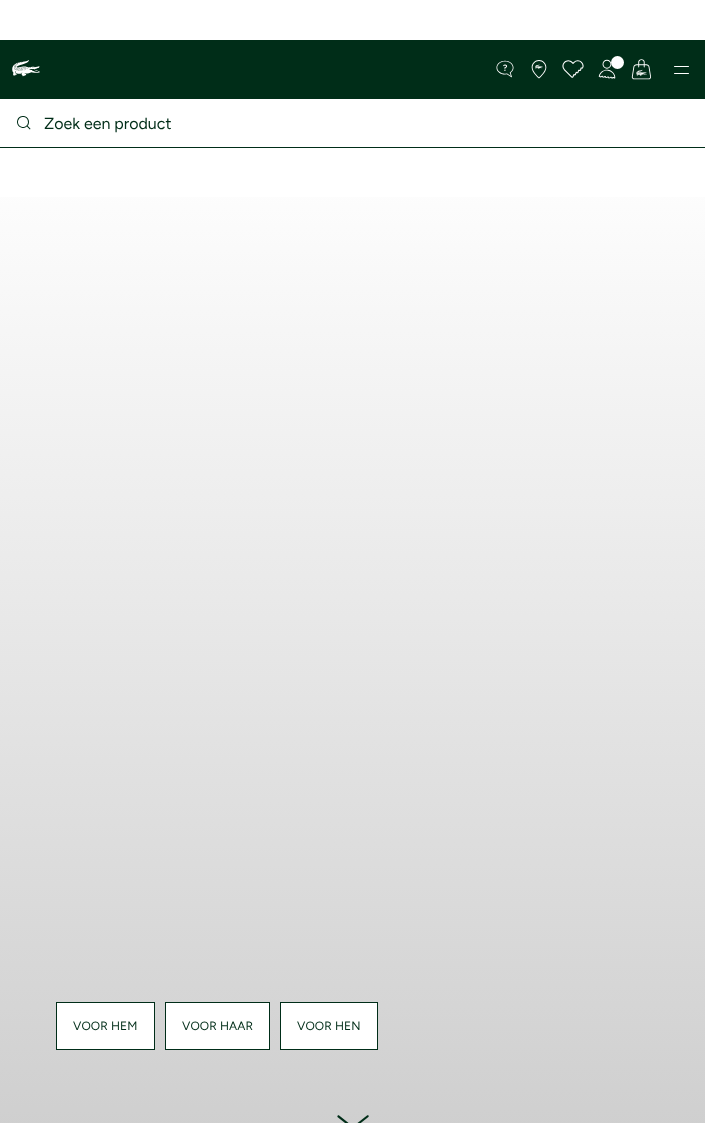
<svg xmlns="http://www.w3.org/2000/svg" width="705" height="1123">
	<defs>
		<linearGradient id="g1" gradientUnits="userSpaceOnUse" x1="352" y1="146" x2="353" y2="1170"><stop offset="0" stop-color="#FFFFFF" /><stop offset="1" stop-color="#CDCDCD" /></linearGradient>
	</defs>
	<rect width="100%" height="100%" fill="#FFFFFF" />
	<rect x="0" y="40" width="705" height="59" fill="#002D18" />
	<image x="12" y="60" width="28" height="17" href="assets/img1.png" />
	<image x="496" y="60" width="18" height="18" href="assets/img2.png" />
	<image x="531" y="60" width="16" height="19" href="assets/img3.png" />
	<image x="562" y="60" width="22" height="18" href="assets/img4.png" />
	<image x="598" y="59" width="18" height="20" href="assets/img5.png" />
	<circle cx="617.5" cy="62.5" r="6.5" fill="#FFFFFF" />
	<image x="631" y="59" width="20" height="21" href="assets/img6.png" />
	<rect x="674" y="66" width="15" height="1" rx="0.5" fill="#FFFFFF" />
	<rect x="674" y="73" width="15" height="1" rx="0.5" fill="#FFFFFF" />
	<rect x="0" y="147" width="705" height="1" fill="#002D18" />
	<image x="17" y="116" width="14" height="14" href="assets/img7.png" />
	<text x="44" y="129" font-family="Figtree" font-size="16" fill="#002D18">Zoek een product</text>
	<rect x="0" y="197" width="705" height="926" fill="url(#g1)" />
	<rect x="56.5" y="1002.5" width="98" height="47" fill="#FFFFFF" stroke="#002D18" />
	<text x="73" y="1030" font-family="Figtree" font-size="12" letter-spacing="0.1" fill="#002D18">VOOR HEM</text>
	<rect x="165.5" y="1002.5" width="104" height="47" fill="#FFFFFF" stroke="#002D18" />
	<text x="182" y="1030" font-family="Figtree" font-size="12" letter-spacing="0.1" fill="#002D18">VOOR HAAR</text>
	<rect x="280.5" y="1002.5" width="97" height="47" fill="#FFFFFF" stroke="#002D18" />
	<text x="297" y="1030" font-family="Figtree" font-size="12" letter-spacing="0.1" fill="#002D18">VOOR HEN</text>
	<image x="337" y="1115" width="32" height="8" href="assets/img8.png" />
</svg>
